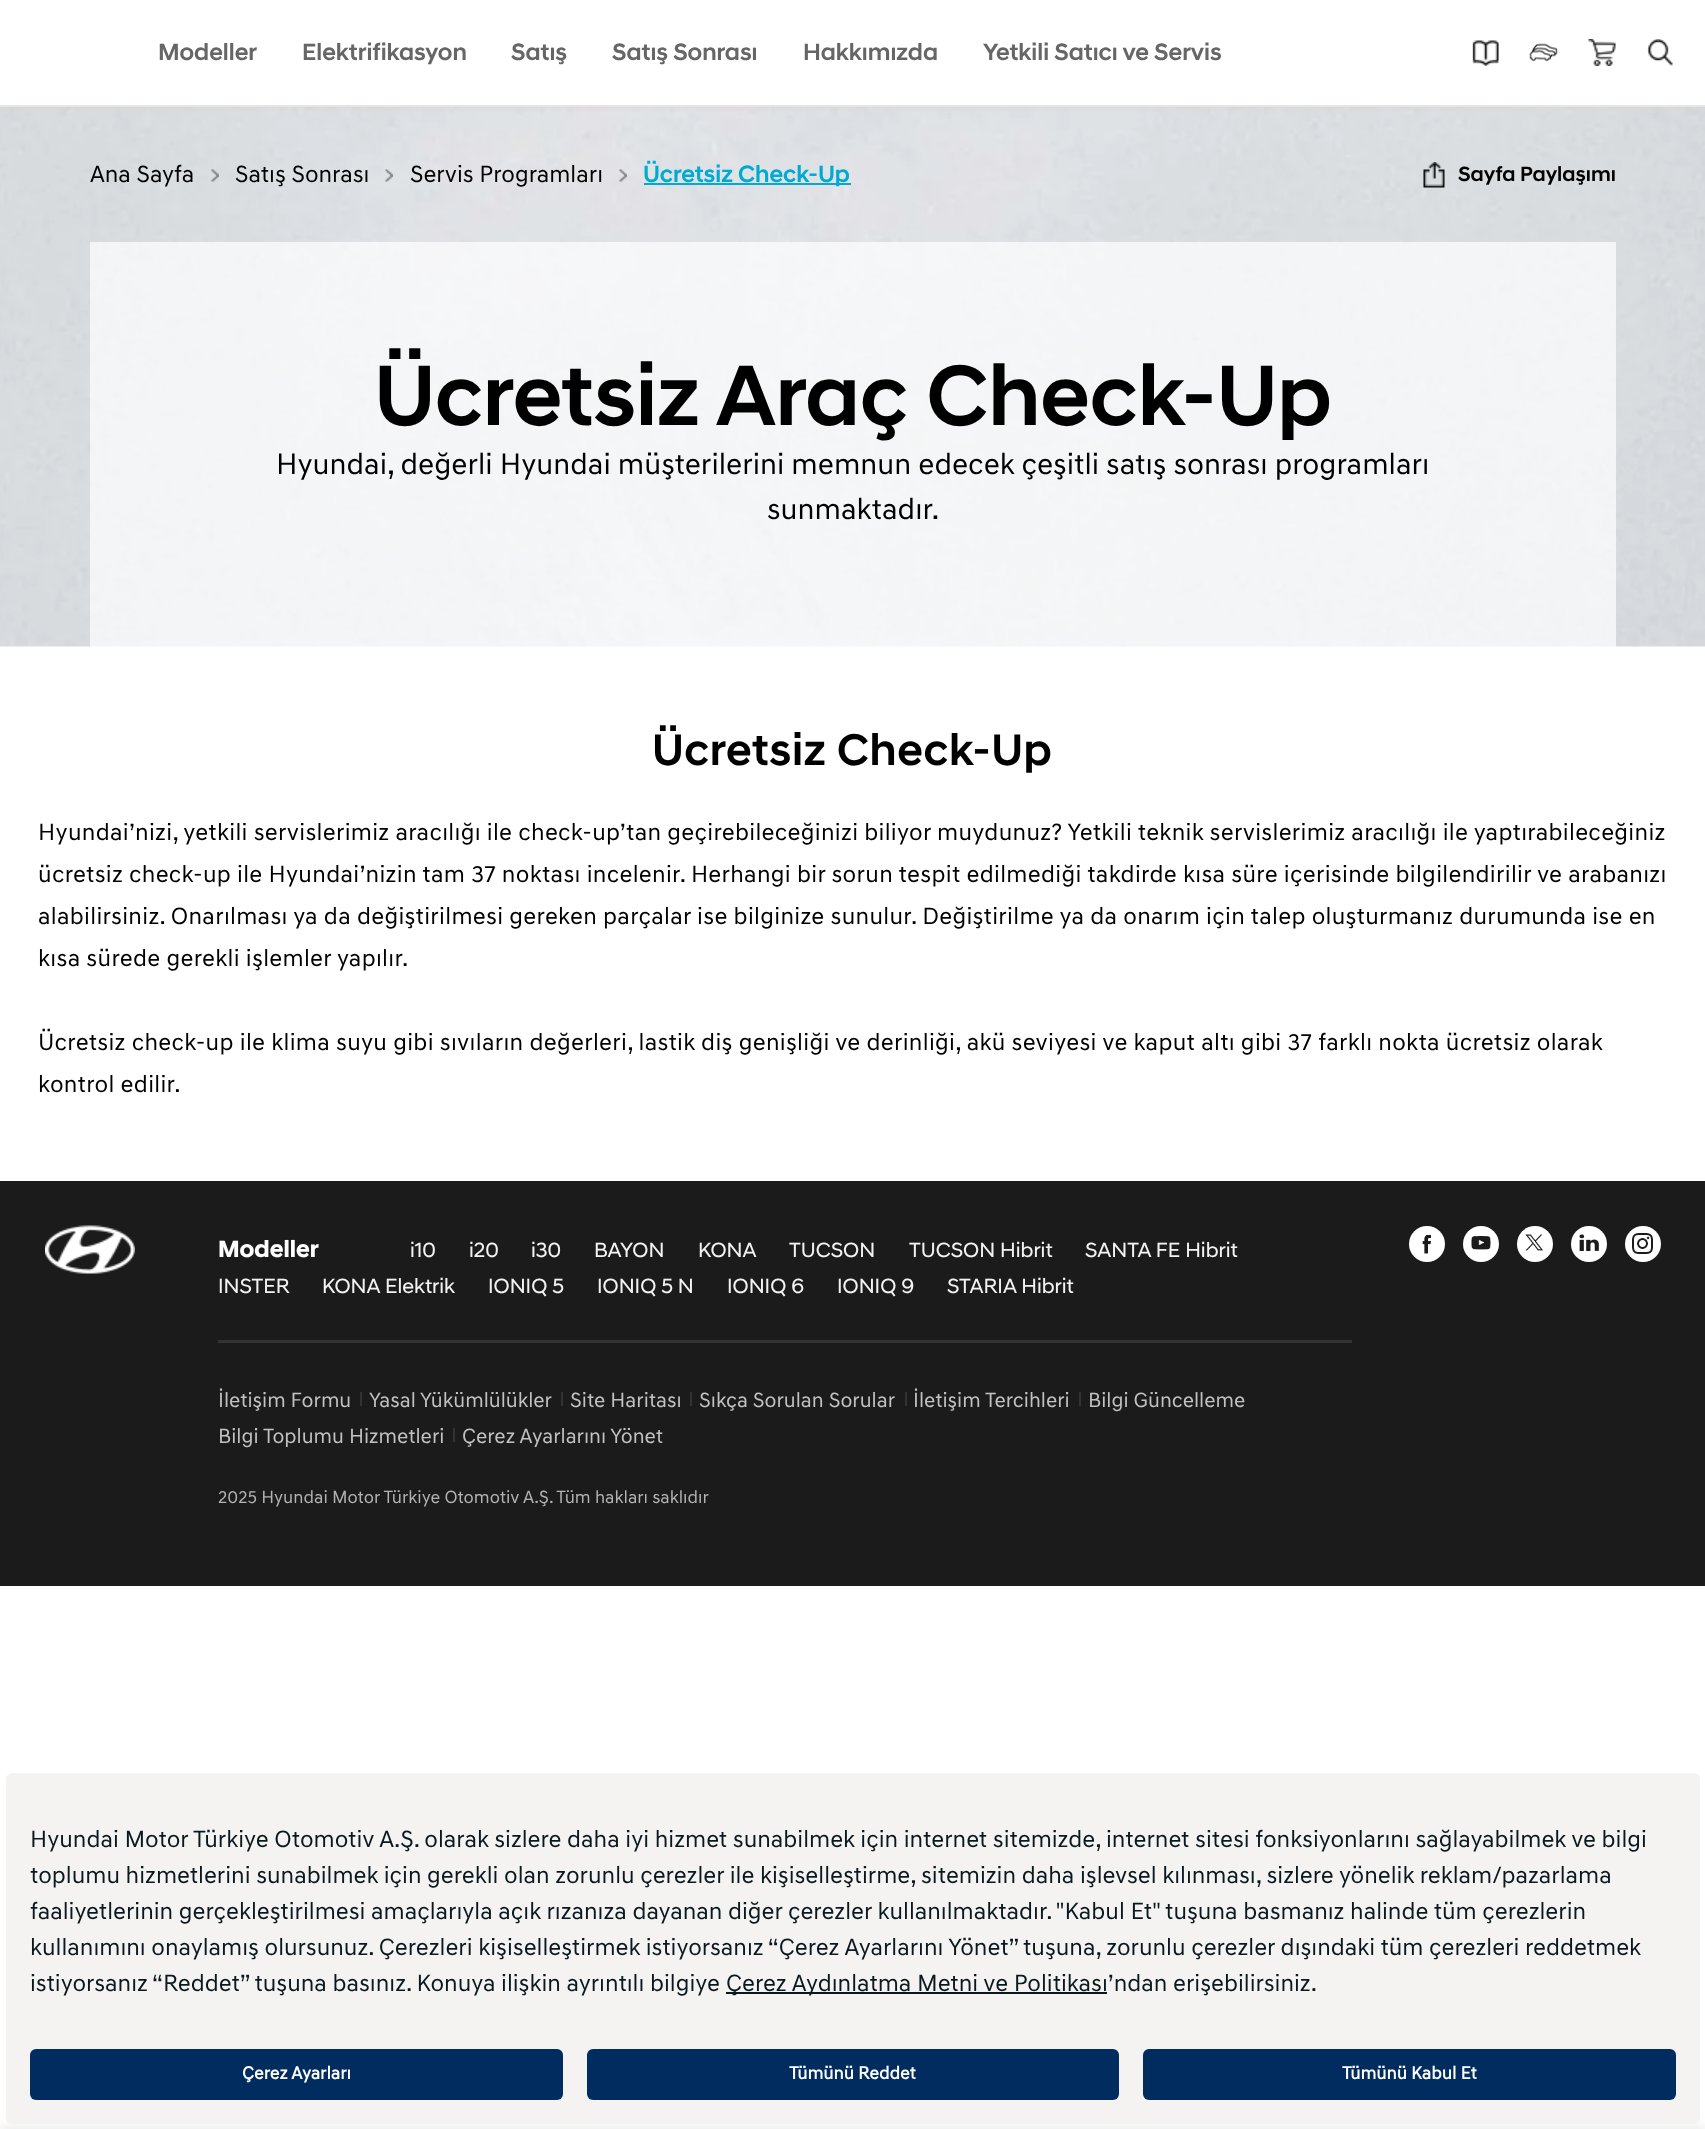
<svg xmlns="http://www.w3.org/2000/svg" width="1705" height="2129">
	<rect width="100%" height="100%" fill="#FFFFFF" />
	<image x="0" y="107" width="1705" height="540" href="assets/img5.png" />
	<rect x="0" y="2" width="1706" height="106" fill="#D8D1C8" fill-opacity="0.7" filter="blur(2px)" />
	<rect x="0" y="0" width="1705" height="105" fill="#FFFFFF" />
	<g font-family="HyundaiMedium" font-size="24" font-weight="500" fill="#666666">
		<text x="158" y="60">Modeller</text>
		<text x="302" y="60">Elektrifikasyon</text>
		<text x="511" y="60">Satış</text>
		<text x="612" y="60">Satış Sonrası</text>
		<text x="803" y="60">Hakkımızda</text>
		<text x="983" y="60">Yetkili Satıcı ve Servis</text>
	</g>
	<image x="1472" y="40" width="27" height="26" href="assets/img1.png" />
	<image x="1529" y="43" width="29" height="19" href="assets/img2.png" />
	<image x="1588" y="39" width="28" height="27" href="assets/img3.png" />
	<image x="1647" y="39" width="26" height="27" href="assets/img4.png" />
	<rect x="0" y="105" width="1705" height="2" fill="#E5E5E5" />
	<text x="90" y="182" font-family="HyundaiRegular" font-size="24" fill="#000000">Ana Sayfa</text>
	<image x="211" y="169" width="8" height="13" href="assets/img6.png" />
	<text x="235" y="182" font-family="HyundaiRegular" font-size="24" fill="#000000">Satış Sonrası</text>
	<image x="385" y="169" width="8" height="13" href="assets/img7.png" />
	<text x="410" y="182" font-family="HyundaiRegular" font-size="24" fill="#000000">Servis Programları</text>
	<image x="619" y="169" width="8" height="13" href="assets/img8.png" />
	<rect x="644" y="183" width="207" height="2" fill="#00AAD2" />
	<text x="643" y="182" font-family="HyundaiMedium" font-size="24" font-weight="500" fill="#00AAD2">Ücretsiz Check-Up</text>
	<image x="1423" y="162" width="22" height="26" href="assets/img9.png" />
	<text x="1458" y="181" font-family="HyundaiMedium" font-size="21" font-weight="500" fill="#000000">Sayfa Paylaşımı</text>
	<rect x="90" y="242" width="1526" height="405" fill="#FFFFFF" fill-opacity="0.7" />
	<text x="374" y="425" font-family="HyundaiMedium" font-size="87" font-weight="500" fill="#000000">Ücretsiz Araç Check-Up</text>
	<g font-family="HyundaiRegular" font-size="30" fill="#000000">
		<text x="276" y="474">Hyundai, değerli Hyundai müşterilerini memnun edecek çeşitli satış sonrası programları</text>
		<text x="767" y="519">sunmaktadır.</text>
	</g>
	<text x="652" y="765" font-family="HyundaiMedium" font-size="45" font-weight="500" letter-spacing="0.75" fill="#000000">Ücretsiz Check-Up</text>
	<g font-family="HyundaiRegular" font-size="24" letter-spacing="0.3" fill="#000000">
		<text x="38" y="840">Hyundai’nizi, yetkili servislerimiz aracılığı ile check-up’tan geçirebileceğinizi biliyor muydunuz? Yetkili teknik servislerimiz aracılığı ile yaptırabileceğiniz</text>
		<text x="38" y="882">ücretsiz check-up ile Hyundai’nizin tam 37 noktası incelenir. Herhangi bir sorun tespit edilmediği takdirde kısa süre içerisinde bilgilendirilir ve arabanızı</text>
		<text x="38" y="924">alabilirsiniz. Onarılması ya da değiştirilmesi gereken parçalar ise bilginize sunulur. Değiştirilme ya da onarım için talep oluşturmanız durumunda ise en</text>
		<text x="38" y="966">kısa sürede gerekli işlemler yapılır.</text>
		<text x="38" y="1050">Ücretsiz check-up ile klima suyu gibi sıvıların değerleri, lastik diş genişliği ve derinliği, akü seviyesi ve kaput altı gibi 37 farklı nokta ücretsiz olarak</text>
		<text x="38" y="1092">kontrol edilir.</text>
	</g>
	<rect x="0" y="1181" width="1705" height="405" fill="#1C1B1B" />
	<image x="45" y="1225" width="90" height="49" href="assets/img10.png" />
	<rect x="218" y="1340" width="1134" height="3" fill="#323232" />
	<text x="218" y="1257" font-family="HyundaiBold" font-size="24" font-weight="700" fill="#FFFFFF">Modeller</text>
	<g font-family="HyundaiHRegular" font-size="21" fill="#F2F2F2">
		<text x="410" y="1257">i10</text>
		<text x="469" y="1257">i20</text>
		<text x="531" y="1257">i30</text>
		<text x="594" y="1257">BAYON</text>
		<text x="698" y="1257">KONA</text>
		<text x="789" y="1257">TUCSON</text>
		<text x="909" y="1257">TUCSON Hibrit</text>
		<text x="1085" y="1257">SANTA FE Hibrit</text>
		<text x="218" y="1293">INSTER</text>
		<text x="322" y="1293">KONA Elektrik</text>
		<text x="488" y="1293">IONIQ 5</text>
		<text x="597" y="1293">IONIQ 5 N</text>
		<text x="727" y="1293">IONIQ 6</text>
		<text x="837" y="1293">IONIQ 9</text>
		<text x="947" y="1293">STARIA Hibrit</text>
	</g>
	<circle cx="1427" cy="1244" r="18" fill="#FFFFFF" />
	<image x="1422" y="1234" width="9" height="20" href="assets/img11.png" />
	<circle cx="1481" cy="1244" r="18" fill="#FFFFFF" />
	<image x="1471" y="1236" width="20" height="14" href="assets/img12.png" />
	<circle cx="1535" cy="1244" r="18" fill="#FFFFFF" />
	<image x="1525" y="1234" width="18" height="17" href="assets/img13.png" />
	<circle cx="1589" cy="1244" r="18" fill="#FFFFFF" />
	<image x="1579" y="1234" width="20" height="17" href="assets/img14.png" />
	<circle cx="1643" cy="1244" r="18" fill="#FFFFFF" />
	<image x="1632" y="1233" width="21" height="21" href="assets/img15.png" />
	<text x="218" y="1407" font-family="HyundaiRegular" font-size="21" fill="#C2C2C2">İletişim Formu</text>
	<rect x="360" y="1392" width="2" height="14" fill="#333232" />
	<text x="369" y="1407" font-family="HyundaiRegular" font-size="21" fill="#C2C2C2">Yasal Yükümlülükler</text>
	<rect x="561" y="1392" width="2" height="14" fill="#333232" />
	<text x="570" y="1407" font-family="HyundaiRegular" font-size="21" fill="#C2C2C2">Site Haritası</text>
	<rect x="690" y="1392" width="2" height="14" fill="#333232" />
	<text x="699" y="1407" font-family="HyundaiRegular" font-size="21" fill="#C2C2C2">Sıkça Sorulan Sorular</text>
	<rect x="905" y="1392" width="2" height="14" fill="#333232" />
	<text x="913" y="1407" font-family="HyundaiRegular" font-size="21" fill="#C2C2C2">İletişim Tercihleri</text>
	<rect x="1079" y="1392" width="2" height="14" fill="#333232" />
	<g font-family="HyundaiRegular" font-size="21" fill="#C2C2C2">
		<text x="1088" y="1407">Bilgi Güncelleme</text>
		<text x="218" y="1443">Bilgi Toplumu Hizmetleri</text>
	</g>
	<rect x="453" y="1428" width="2" height="14" fill="#333232" />
	<text x="462" y="1443" font-family="HyundaiRegular" font-size="21" fill="#C2C2C2">Çerez Ayarlarını Yönet</text>
	<text x="218" y="1503" font-family="HyundaiRegular" font-size="18" fill="#B3B3B3">2025 Hyundai Motor Türkiye Otomotiv A.Ş. Tüm hakları saklıdır</text>
	<rect x="0" y="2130" width="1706" height="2" fill="#000000" fill-opacity="0.4" filter="blur(6px)" />
	<rect x="6" y="1773" width="1694" height="351" rx="6" fill="#F5F3F2" />
	<g font-family="HyundaiRegular" font-size="24" fill="#0A191F">
		<text x="30" y="1847">Hyundai Motor Türkiye Otomotiv A.Ş. olarak sizlere daha iyi hizmet sunabilmek için internet sitemizde, internet sitesi fonksiyonlarını sağlayabilmek ve bilgi</text>
		<text x="30" y="1883">toplumu hizmetlerini sunabilmek için gerekli olan zorunlu çerezler ile kişiselleştirme, sitemizin daha işlevsel kılınması, sizlere yönelik reklam/pazarlama</text>
		<text x="30" y="1919">faaliyetlerinin gerçekleştirilmesi amaçlarıyla açık rızanıza dayanan diğer çerezler kullanılmaktadır. "Kabul Et" tuşuna basmanız halinde tüm çerezlerin</text>
		<text x="30" y="1955">kullanımını onaylamış olursunuz. Çerezleri kişiselleştirmek istiyorsanız “Çerez Ayarlarını Yönet” tuşuna, zorunlu çerezler dışındaki tüm çerezleri reddetmek</text>
		<text x="30" y="1991">istiyorsanız “Reddet” tuşuna basınız. Konuya ilişkin ayrıntılı bilgiye</text>
	</g>
	<rect x="726" y="1992" width="381" height="2" fill="#0A191F" />
	<text x="726" y="1991" font-family="HyundaiRegular" font-size="24" fill="#0A191F">Çerez Aydınlatma Metni ve Politikası’ndan erişebilirsiniz.</text>
	<rect x="30" y="2049" width="533" height="51" rx="6" fill="#002C5F" />
	<text x="242" y="2079" font-family="HyundaiRegular" font-size="18" font-weight="700" fill="#FFFFFF">Çerez Ayarları</text>
	<rect x="587" y="2049" width="532" height="51" rx="6" fill="#002C5F" />
	<text x="789" y="2079" font-family="HyundaiRegular" font-size="18" font-weight="700" fill="#FFFFFF">Tümünü Reddet</text>
	<rect x="1143" y="2049" width="533" height="51" rx="6" fill="#002C5F" />
	<text x="1342" y="2079" font-family="HyundaiRegular" font-size="18" font-weight="700" fill="#FFFFFF">Tümünü Kabul Et</text>
</svg>
